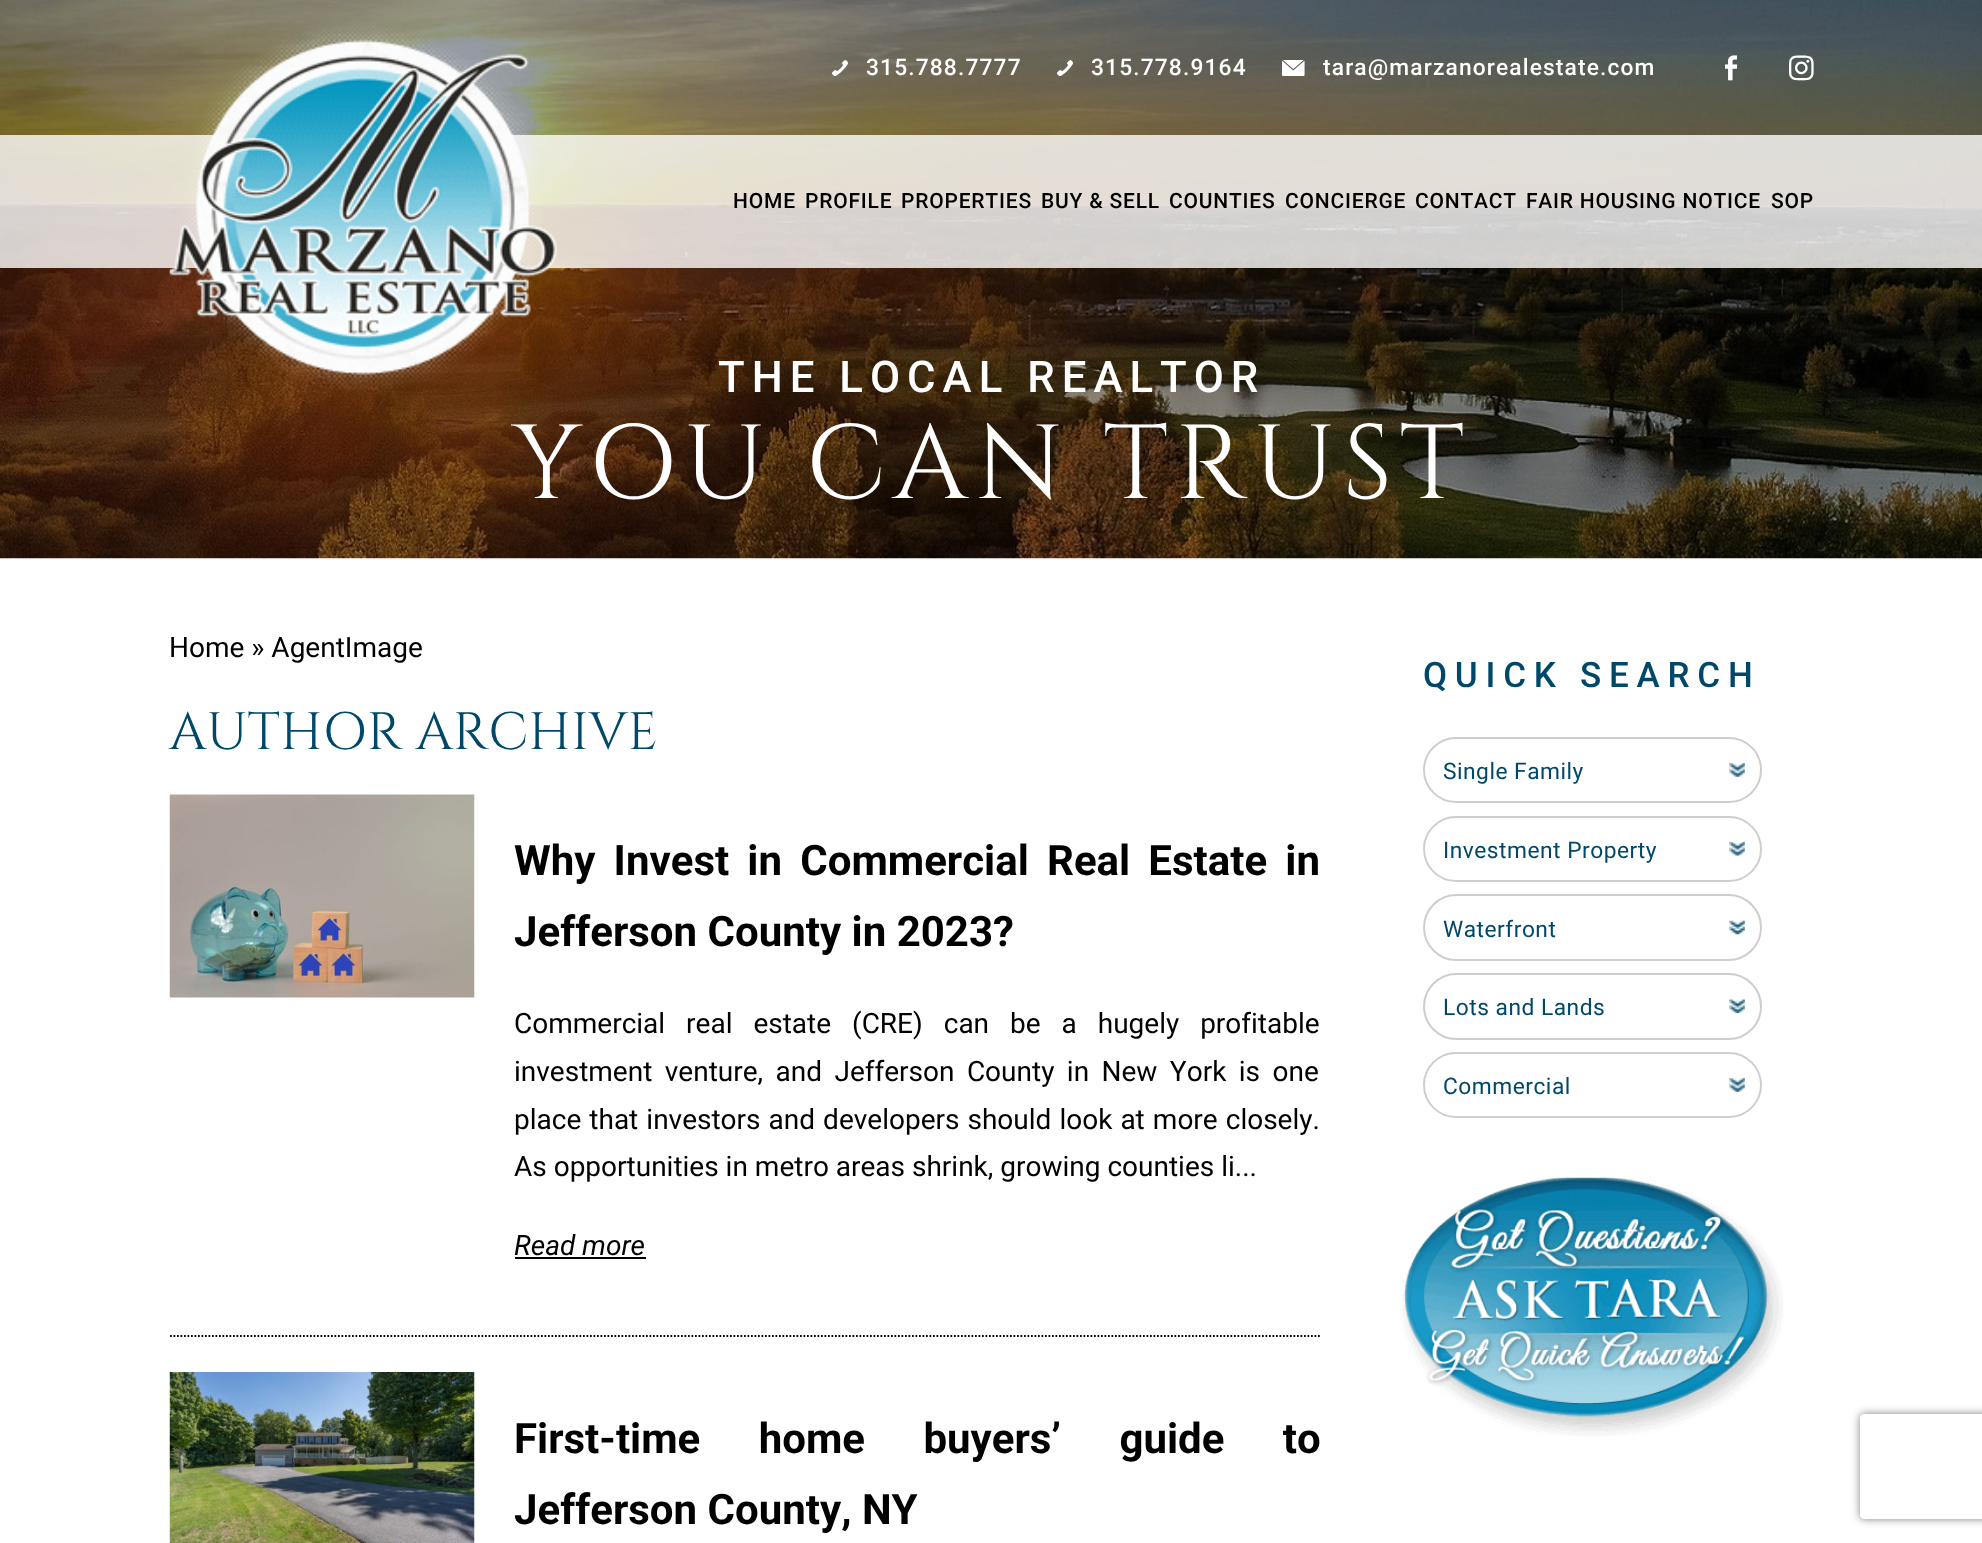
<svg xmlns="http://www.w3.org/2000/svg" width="1982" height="1543">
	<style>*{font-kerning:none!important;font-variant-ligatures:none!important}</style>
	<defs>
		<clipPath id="clip1"><path d="M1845 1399H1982V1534H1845ZM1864 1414H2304C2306 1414 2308 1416 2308 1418V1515C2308 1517 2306 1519 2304 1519H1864C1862 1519 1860 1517 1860 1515V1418C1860 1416 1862 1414 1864 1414Z" clip-rule="evenodd" /></clipPath>
	</defs>
	<rect width="100%" height="100%" fill="#FFFFFF" />
	<image x="0" y="0" width="1982" height="559" href="assets/img2.png" />
	<text x="832" y="75" font-family="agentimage" font-size="16" letter-spacing="1.15" fill="#FFFFFF">򰈄</text>
	<text x="866" y="75" font-family="Roboto" font-size="22.75" font-weight="500" letter-spacing="1.15" fill="#FFFFFF">315.788.7777</text>
	<text x="1057" y="75" font-family="agentimage" font-size="16" letter-spacing="1.15" fill="#FFFFFF">򰈄</text>
	<text x="1091" y="75" font-family="Roboto" font-size="22.75" font-weight="500" letter-spacing="1.15" fill="#FFFFFF">315.778.9164</text>
	<text x="1282" y="75" font-family="agentimage" font-size="16" letter-spacing="1.15" fill="#FFFFFF">򰄡</text>
	<text x="1323" y="75" font-family="Roboto" font-size="22.75" font-weight="500" letter-spacing="1.15" fill="#FFFFFF">tara@marzanorealestate.com</text>
	<g font-family="agentimage" font-size="30" fill="#FFFFFF">
		<text x="1725" y="81">򰄔</text>
		<text x="1789" y="81">򰄆</text>
	</g>
	<rect x="0" y="135" width="1982" height="133" fill="#FFFFFF" fill-opacity="0.8" />
	<image x="169" y="26" width="388" height="364" href="assets/img1.png" />
	<g font-family="Roboto" font-size="21" font-weight="500" letter-spacing="0.8" fill="#000000">
		<text x="733" y="208">HOME</text>
		<text x="805" y="208">PROFILE</text>
		<text x="901" y="208">PROPERTIES</text>
		<text x="1041" y="208">BUY &amp; SELL</text>
		<text x="1169" y="208">COUNTIES</text>
		<text x="1285" y="208">CONCIERGE</text>
		<text x="1415" y="208">CONTACT</text>
		<text x="1526" y="208">FAIR HOUSING NOTICE</text>
		<text x="1771" y="208">SOP</text>
	</g>
	<text x="718" y="392" font-family="Roboto" font-size="43.75" font-weight="500" letter-spacing="7" fill="#FFFFFF">THE LOCAL REALTOR</text>
	<text x="512" y="498" font-family="Cinzel" font-size="105" letter-spacing="7" fill="#FFFFFF">YOU CAN TRUST</text>
	<text x="169" y="657" font-family="Roboto" font-size="28" fill="#000000">Home » AgentImage</text>
	<text x="169" y="749" font-family="Cinzel" font-size="52.5" fill="#004869">AUTHOR ARCHIVE</text>
	<path d="M170 1336H1321" fill="none" stroke="#000000" stroke-width="1.8" stroke-dasharray="1.75 1.75" />
	<image x="169" y="794" width="306" height="204" href="assets/img3.png" />
	<g font-family="Roboto" font-size="42" font-weight="700" fill="#000000">
		<text x="514" y="875" word-spacing="7.75">Why Invest in Commercial Real Estate in</text>
		<text x="514" y="946">Jefferson County in 2023?</text>
	</g>
	<g font-family="Roboto" font-size="28" fill="#000000">
		<text x="514" y="1033" word-spacing="14">Commercial real estate (CRE) can be a hugely profitable</text>
		<text x="514" y="1081" word-spacing="5.5">investment venture, and Jefferson County in New York is one</text>
		<text x="514" y="1129" word-spacing="1.1">place that investors and developers should look at more closely.</text>
		<text x="514" y="1176">As opportunities in metro areas shrink, growing counties li...</text>
	</g>
	<text x="514" y="1255" font-family="Roboto" font-size="28" font-style="italic" fill="#000000">Read more</text>
	<rect x="515" y="1257" width="131" height="2" fill="#000000" />
	<image x="169" y="1372" width="306" height="171" href="assets/img4.png" />
	<g font-family="Roboto" font-size="42" font-weight="700" fill="#000000">
		<text x="514" y="1453" word-spacing="48">First-time home buyers’ guide to</text>
		<text x="514" y="1524">Jefferson County, NY</text>
	</g>
	<text x="1423" y="687" font-family="Roboto" font-size="35" font-weight="500" letter-spacing="7.75" fill="#004869">QUICK SEARCH</text>
	<rect x="1424" y="738" width="337" height="64" rx="32" fill="none" stroke="#CECECE" stroke-width="2" />
	<text x="1443" y="779" font-family="Roboto" font-size="22.75" letter-spacing="0.5" fill="#004869">Single Family</text>
	<image x="1729" y="763" width="16" height="14" href="assets/img5.png" />
	<rect x="1424" y="817" width="337" height="64" rx="32" fill="none" stroke="#CECECE" stroke-width="2" />
	<text x="1443" y="858" font-family="Roboto" font-size="22.75" letter-spacing="0.5" fill="#004869">Investment Property</text>
	<image x="1729" y="841" width="16" height="15" href="assets/img6.png" />
	<rect x="1424" y="895" width="337" height="65" rx="32.5" fill="none" stroke="#CECECE" stroke-width="2" />
	<text x="1443" y="937" font-family="Roboto" font-size="22.75" letter-spacing="0.5" fill="#004869">Waterfront</text>
	<image x="1729" y="920" width="16" height="15" href="assets/img7.png" />
	<rect x="1424" y="974" width="337" height="65" rx="32.5" fill="none" stroke="#CECECE" stroke-width="2" />
	<text x="1443" y="1015" font-family="Roboto" font-size="22.75" letter-spacing="0.5" fill="#004869">Lots and Lands</text>
	<image x="1729" y="999" width="16" height="15" href="assets/img8.png" />
	<rect x="1424" y="1053" width="337" height="64" rx="32" fill="none" stroke="#CECECE" stroke-width="2" />
	<text x="1443" y="1094" font-family="Roboto" font-size="22.75" letter-spacing="0.5" fill="#004869">Commercial</text>
	<image x="1729" y="1078" width="16" height="14" href="assets/img5.png" />
	<image x="1400" y="1177" width="384" height="260" href="assets/img9.png" />
	<g clip-path="url(#clip1)">
		<rect x="1860" y="1414" width="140" height="105" rx="4" fill="#808080" filter="blur(4.5px)" />
	</g>
</svg>
